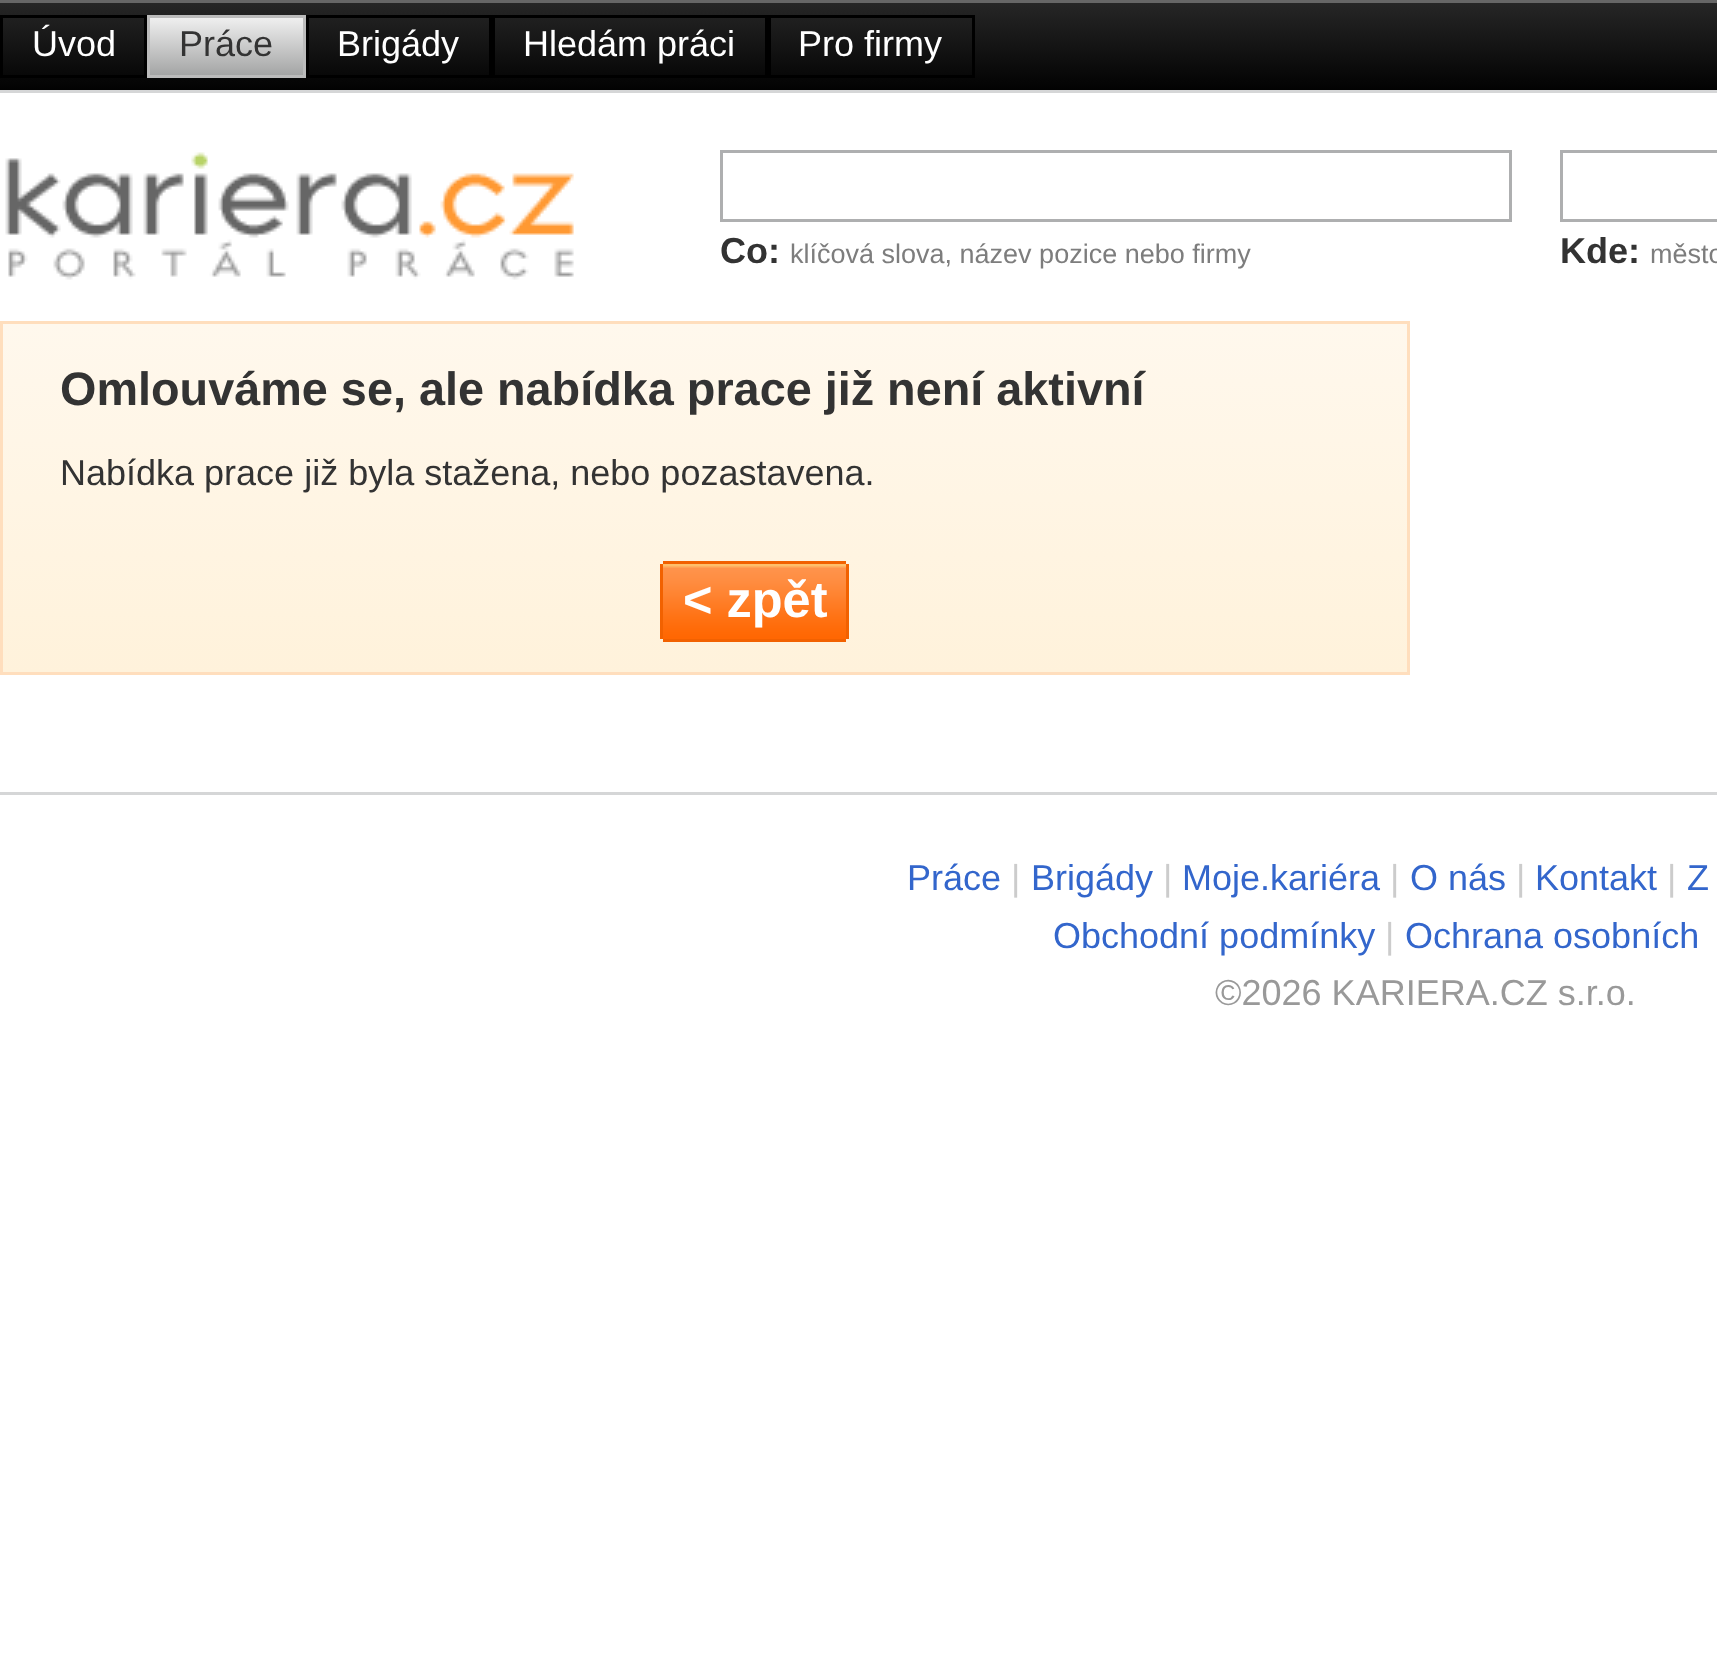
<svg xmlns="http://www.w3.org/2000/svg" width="1717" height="1658">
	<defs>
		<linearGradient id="g1" gradientUnits="userSpaceOnUse" x1="860" y1="3" x2="860" y2="90"><stop offset="0" stop-color="#262626" /><stop offset="1" stop-color="#020202" /></linearGradient>
		<linearGradient id="g2" gradientUnits="userSpaceOnUse" x1="227" y1="18" x2="227" y2="75"><stop offset="0" stop-color="#EFEFEF" /><stop offset="1" stop-color="#A4A5A5" /></linearGradient>
		<linearGradient id="g3" gradientUnits="userSpaceOnUse" x1="705" y1="324" x2="705" y2="672"><stop offset="0" stop-color="#FFF8ED" /><stop offset="1" stop-color="#FFF2DB" /></linearGradient>
	</defs>
	<rect width="100%" height="100%" fill="#FFFFFF" />
	<rect x="0" y="3" width="1717" height="87" fill="url(#g1)" />
	<rect x="0" y="0" width="1717" height="3" fill="#666666" />
	<rect x="0" y="90" width="1717" height="3" fill="#D5D6D7" />
	<rect x="1.5" y="16.5" width="144" height="60" fill="none" stroke="#000000" stroke-width="3" />
	<text x="32" y="56" font-family="Liberation Sans" font-size="36" fill="#FFFFFF">Úvod</text>
	<rect x="150" y="18" width="153" height="57" fill="url(#g2)" />
	<rect x="148.5" y="16.5" width="156" height="60" fill="none" stroke="#BBBBBB" stroke-width="3" />
	<text x="179" y="56" font-family="Liberation Sans" font-size="36" fill="#333333">Práce</text>
	<rect x="307.5" y="16.5" width="183" height="60" fill="none" stroke="#000000" stroke-width="3" />
	<text x="337" y="56" font-family="Liberation Sans" font-size="36" fill="#FFFFFF">Brigády</text>
	<rect x="493.5" y="16.5" width="273" height="60" fill="none" stroke="#000000" stroke-width="3" />
	<text x="523" y="56" font-family="Liberation Sans" font-size="36" fill="#FFFFFF">Hledám práci</text>
	<rect x="769.5" y="16.5" width="204" height="60" fill="none" stroke="#000000" stroke-width="3" />
	<text x="798" y="56" font-family="Liberation Sans" font-size="36" fill="#FFFFFF">Pro firmy</text>
	<image x="5" y="152" width="569" height="128" href="assets/img1.png" />
	<rect x="721.5" y="151.5" width="789" height="69" fill="none" stroke="#AEAFB0" stroke-width="3" />
	<text x="720" y="263" font-family="Liberation Sans" font-size="36" font-weight="700" fill="#333333">Co:</text>
	<text x="790" y="263" font-family="Liberation Sans" font-size="27" fill="#7D7D7D">klíčová slova, název pozice nebo firmy</text>
	<rect x="1561.5" y="151.5" width="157" height="69" fill="none" stroke="#AEAFB0" stroke-width="3" />
	<text x="1560" y="263" font-family="Liberation Sans" font-size="36" font-weight="700" fill="#333333">Kde:</text>
	<text x="1650" y="263" font-family="Liberation Sans" font-size="27" fill="#7D7D7D">město</text>
	<rect x="3" y="324" width="1404" height="348" fill="url(#g3)" />
	<rect x="1.5" y="322.5" width="1407" height="351" fill="none" stroke="#FFDEBD" stroke-width="3" />
	<text x="60" y="405" font-family="Liberation Sans" font-size="46.8" font-weight="700" fill="#333333">Omlouváme se, ale nabídka prace již není aktivní</text>
	<text x="60" y="485" font-family="Liberation Sans" font-size="36" fill="#333333">Nabídka prace již byla stažena, nebo pozastavena.</text>
	<image x="663" y="564" width="183" height="75" href="assets/img2.png" />
	<text x="683" y="617" font-family="Liberation Sans" font-size="50.5" font-weight="700" fill="#FFFFFF">&lt; zpět</text>
	<rect x="846" y="564" width="3" height="75" fill="#F26100" />
	<rect x="660" y="564" width="3" height="75" fill="#F26100" />
	<rect x="663" y="561" width="183" height="3" fill="#F26100" />
	<rect x="663" y="639" width="183" height="3" fill="#F26100" />
	<rect x="0" y="792" width="1717" height="3" fill="#D5D6D7" />
	<text x="907" y="890" font-family="Liberation Sans" font-size="36" fill="#3366CC">Práce</text>
	<text x="1011" y="890" font-family="Liberation Sans" font-size="36" fill="#CCCCCC">|</text>
	<text x="1031" y="890" font-family="Liberation Sans" font-size="36" fill="#3366CC">Brigády</text>
	<text x="1163" y="890" font-family="Liberation Sans" font-size="36" fill="#CCCCCC">|</text>
	<text x="1182" y="890" font-family="Liberation Sans" font-size="36" fill="#3366CC">Moje.kariéra</text>
	<text x="1390" y="890" font-family="Liberation Sans" font-size="36" fill="#CCCCCC">|</text>
	<text x="1410" y="890" font-family="Liberation Sans" font-size="36" fill="#3366CC">O nás</text>
	<text x="1516" y="890" font-family="Liberation Sans" font-size="36" fill="#CCCCCC">|</text>
	<text x="1535" y="890" font-family="Liberation Sans" font-size="36" fill="#3366CC">Kontakt</text>
	<text x="1667" y="890" font-family="Liberation Sans" font-size="36" fill="#CCCCCC">|</text>
	<g font-family="Liberation Sans" font-size="36" fill="#3366CC">
		<text x="1687" y="890">Z</text>
		<text x="1053" y="948">Obchodní podmínky</text>
	</g>
	<text x="1385" y="948" font-family="Liberation Sans" font-size="36" fill="#CCCCCC">|</text>
	<text x="1405" y="948" font-family="Liberation Sans" font-size="36" fill="#3366CC">Ochrana osobních</text>
	<text x="1215" y="1005" font-family="Liberation Sans" font-size="36" fill="#999999">©2026 KARIERA.CZ s.r.o.</text>
</svg>
